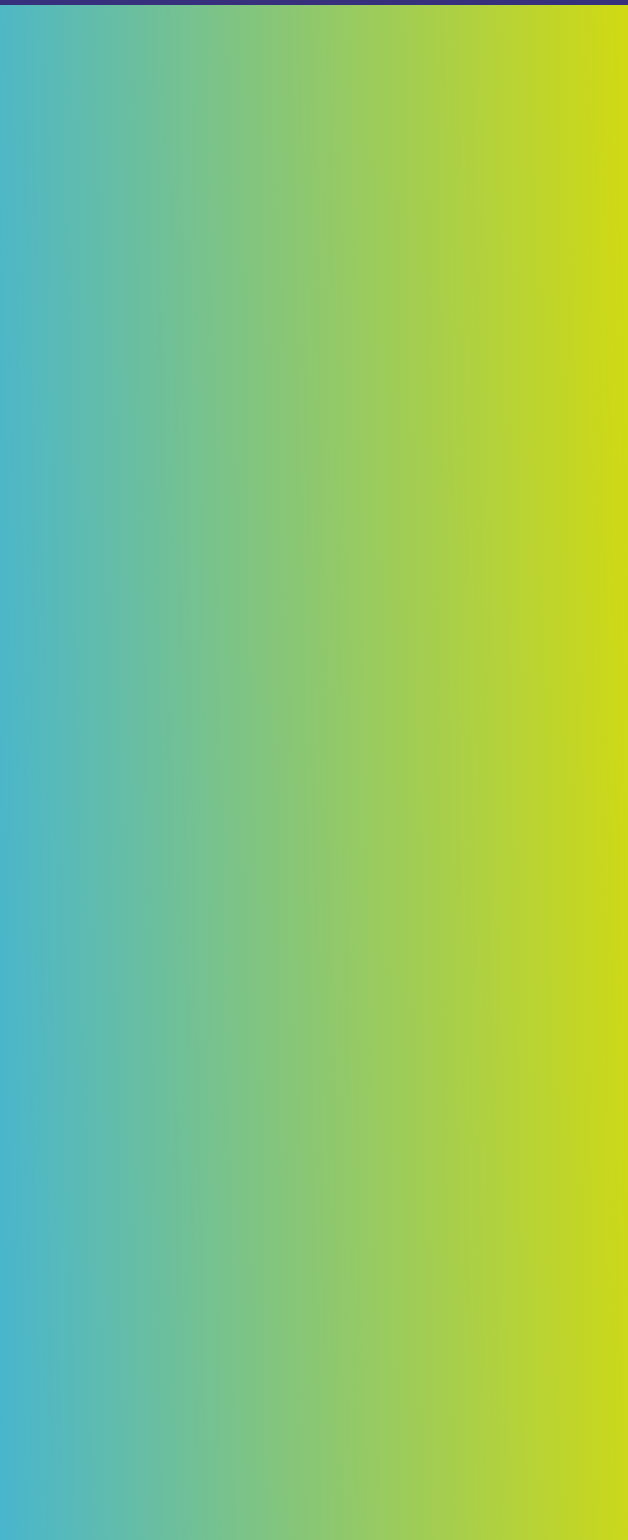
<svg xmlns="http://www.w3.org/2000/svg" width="628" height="1540">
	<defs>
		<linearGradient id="g1" gradientUnits="userSpaceOnUse" x1="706" y1="762" x2="-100" y2="778"><stop offset="0" stop-color="#DEDD00" /><stop offset="1" stop-color="#37B1E6" /></linearGradient>
	</defs>
	<rect width="100%" height="100%" fill="#FFFFFF" />
	<rect x="0" y="5" width="628" height="1535" fill="url(#g1)" />
	<rect x="0" y="0" width="628" height="5" fill="#37307D" />
</svg>
